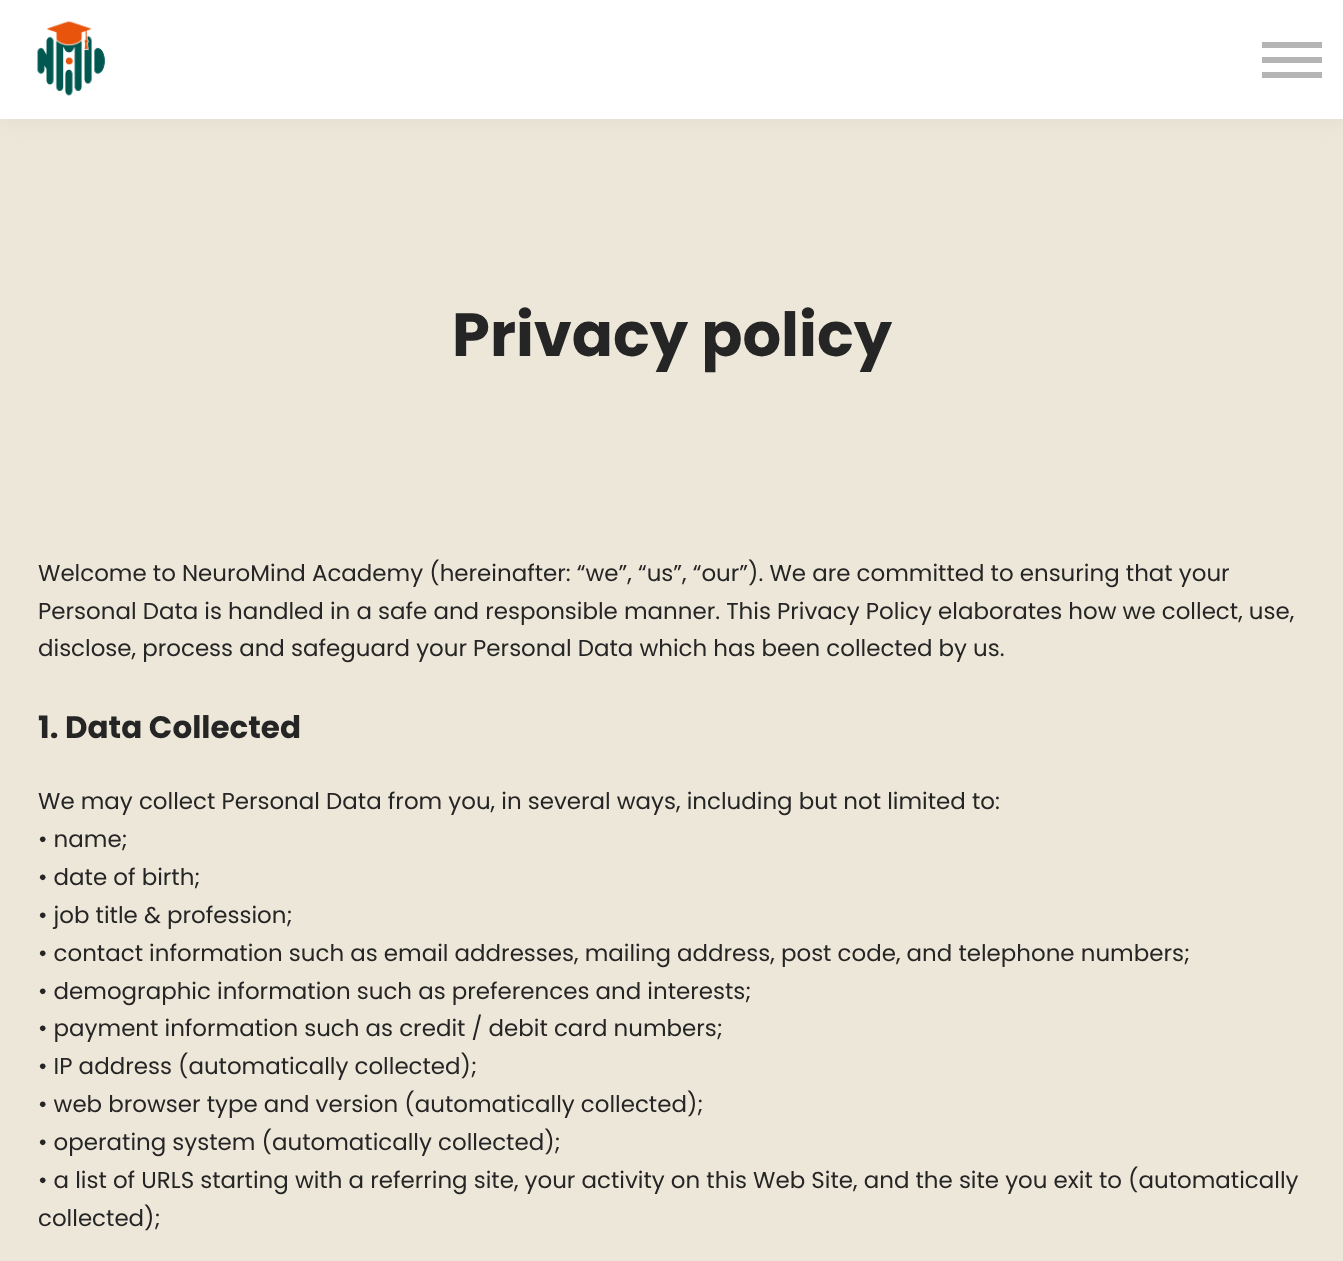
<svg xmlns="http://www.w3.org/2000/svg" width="1343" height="1261">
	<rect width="100%" height="100%" fill="#EDE7D9" />
	<rect x="0" y="0" width="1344" height="119" fill="#000000" fill-opacity="0.05" filter="blur(11px)" />
	<rect x="0" y="0" width="1343" height="119" fill="#FFFFFF" />
	<image x="37" y="21" width="68" height="75" href="assets/img1.png" />
	<rect x="1262" y="72" width="60" height="6" fill="#B4B4B4" />
	<rect x="1262" y="42" width="60" height="6" fill="#B4B4B4" />
	<rect x="1262" y="57" width="60" height="6" fill="#B4B4B4" />
	<text x="452" y="356" font-family="Poppins" font-size="60.75" font-weight="700" fill="#252525">Privacy policy</text>
	<g font-family="Poppins" font-size="22.95" fill="#252525">
		<text x="38" y="581">Welcome to NeuroMind Academy (hereinafter: “we”, “us”, “our”). We are committed to ensuring that your</text>
		<text x="38" y="619">Personal Data is handled in a safe and responsible manner. This Privacy Policy elaborates how we collect, use,</text>
		<text x="38" y="656">disclose, process and safeguard your Personal Data which has been collected by us.</text>
	</g>
	<text x="38" y="738" font-family="Poppins" font-size="31" font-weight="700" fill="#252525">1. Data Collected</text>
	<g font-family="Poppins" font-size="22.95" fill="#252525">
		<text x="38" y="809">We may collect Personal Data from you, in several ways, including but not limited to:</text>
		<text x="38" y="847">• name;</text>
		<text x="38" y="885">• date of birth;</text>
		<text x="38" y="923">• job title &amp; profession;</text>
		<text x="38" y="961">• contact information such as email addresses, mailing address, post code, and telephone numbers;</text>
		<text x="38" y="999">• demographic information such as preferences and interests;</text>
		<text x="38" y="1036">• payment information such as credit / debit card numbers;</text>
		<text x="38" y="1074">• IP address (automatically collected);</text>
		<text x="38" y="1112">• web browser type and version (automatically collected);</text>
		<text x="38" y="1150">• operating system (automatically collected);</text>
		<text x="38" y="1188">• a list of URLS starting with a referring site, your activity on this Web Site, and the site you exit to (automatically</text>
		<text x="38" y="1226">collected);</text>
	</g>
</svg>
